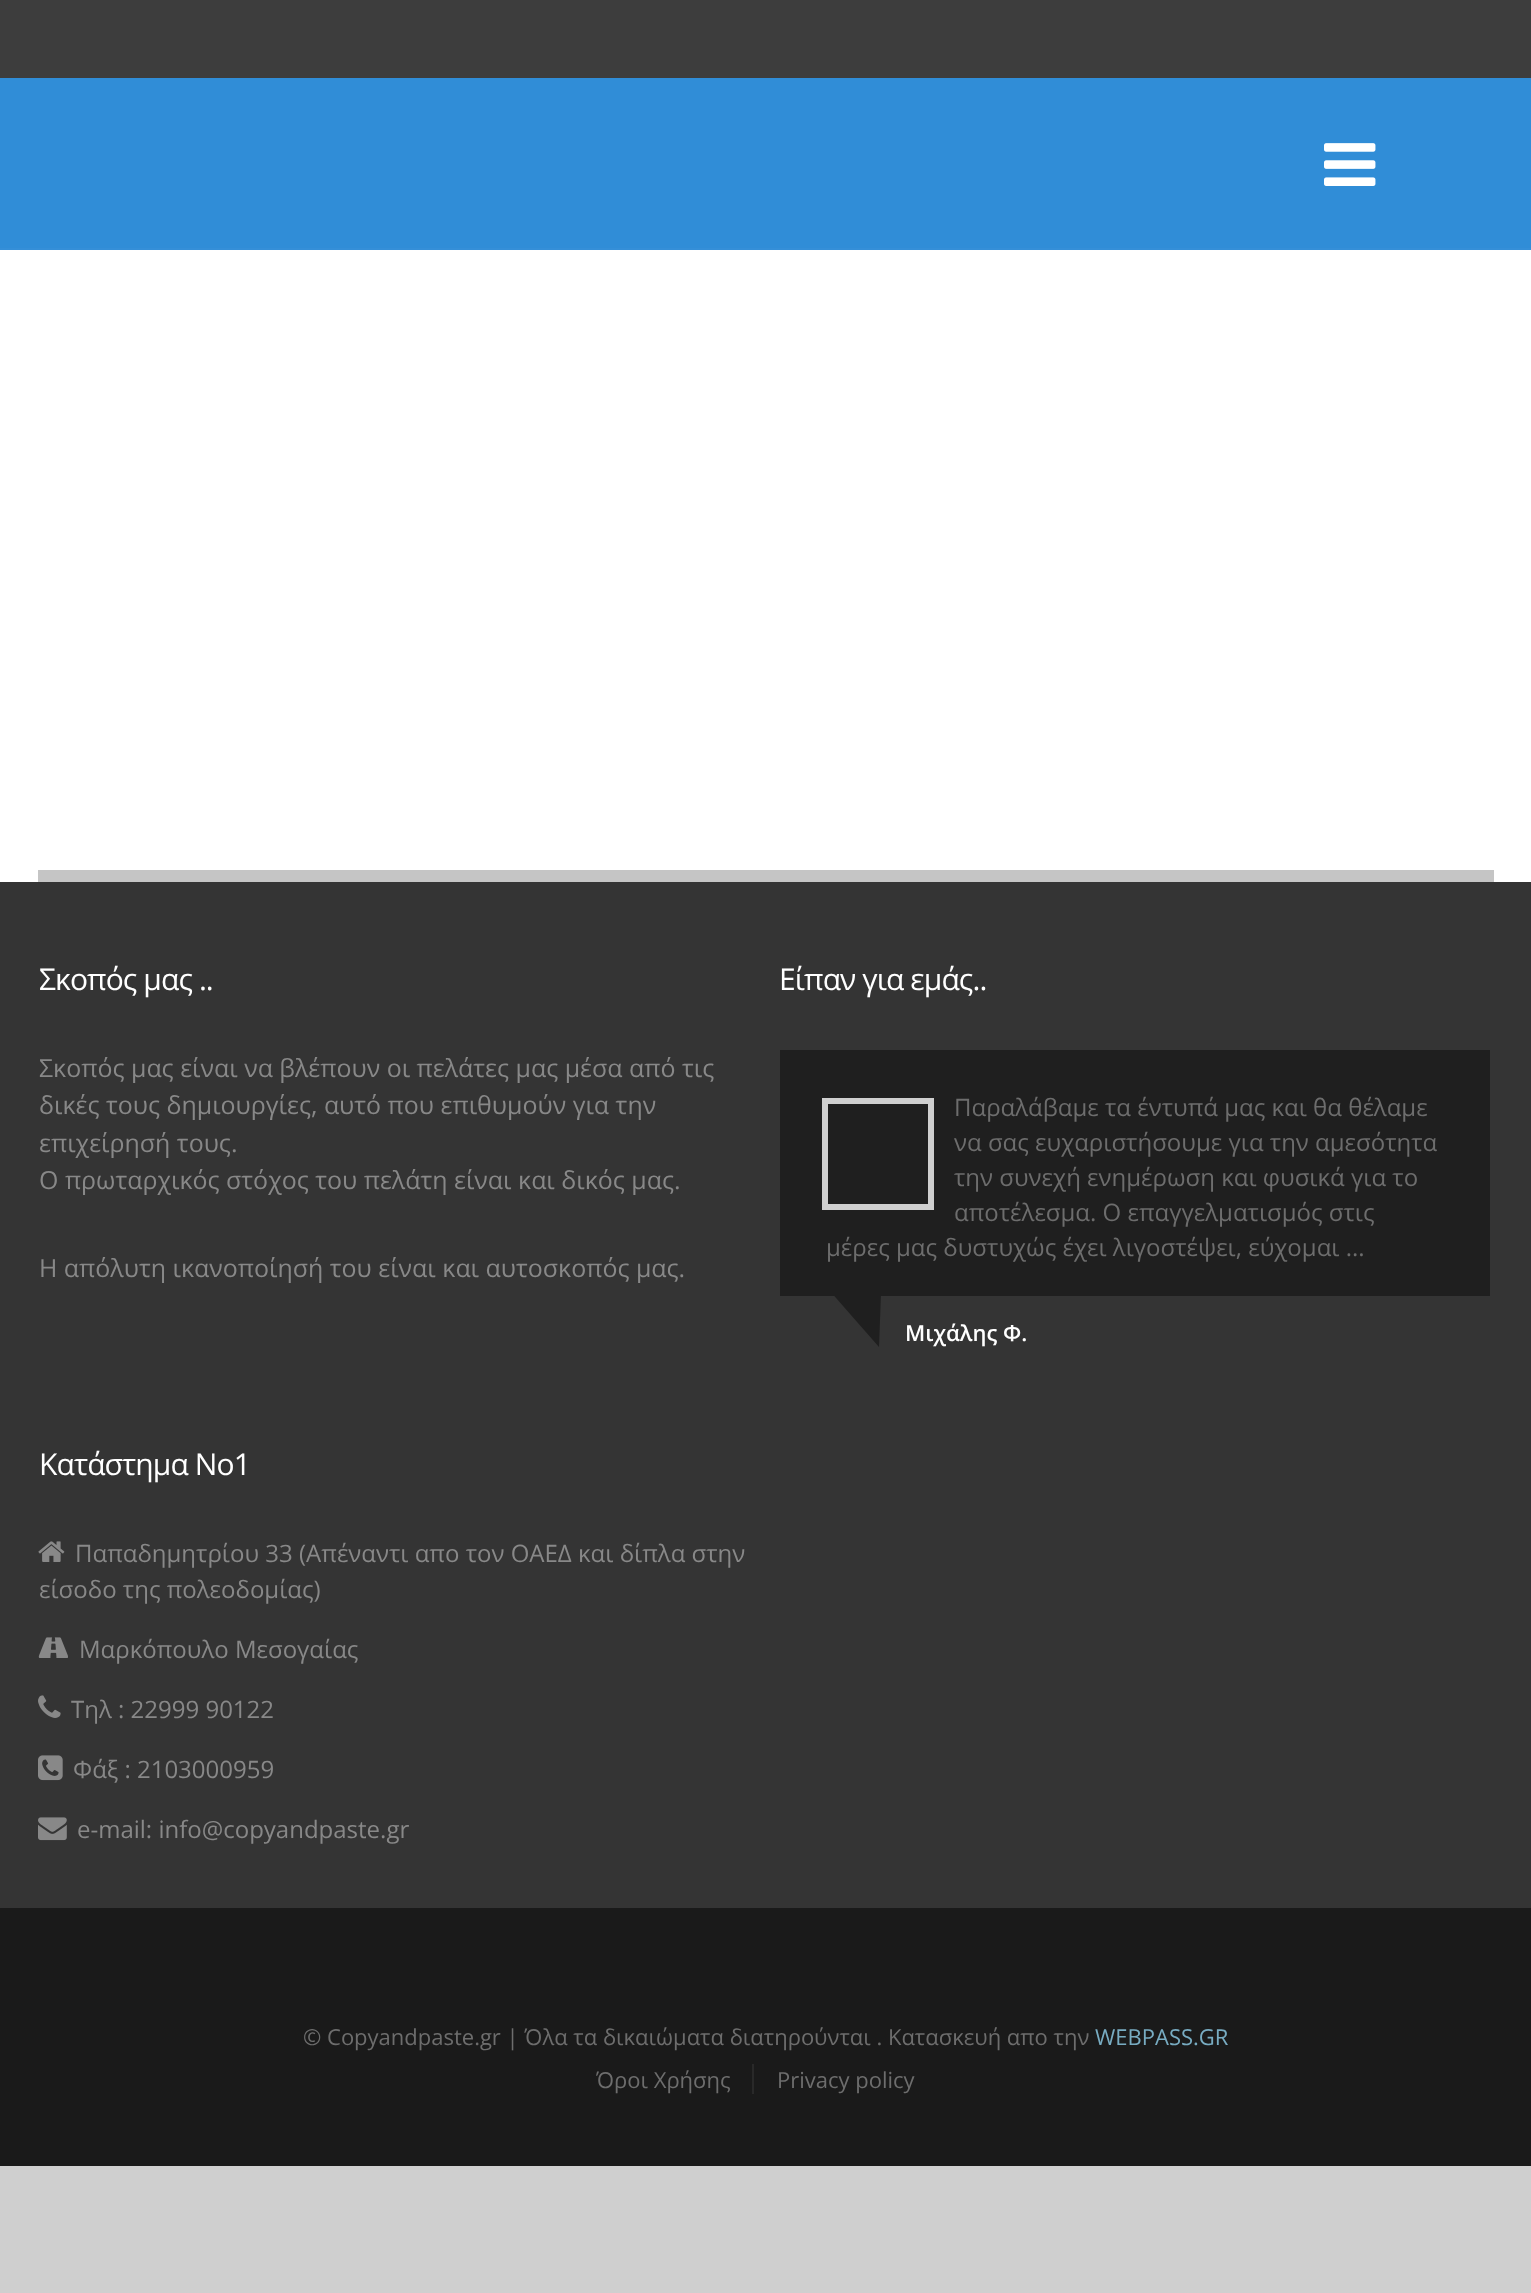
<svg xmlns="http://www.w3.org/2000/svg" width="1531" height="2293">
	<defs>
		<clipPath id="clip1"><rect x="780" y="1296" width="710" height="80" /></clipPath>
	</defs>
	<rect width="100%" height="100%" fill="#CFCFCF" />
	<rect x="0" y="250" width="1531" height="632" fill="#FFFFFF" />
	<rect x="0" y="0" width="1531" height="78" fill="#3D3D3D" />
	<rect x="0" y="248" width="1531" height="2" fill="#358FD8" />
	<rect x="0" y="78" width="1531" height="170" fill="#308DD7" />
	<image x="1324" y="143" width="52" height="43" href="assets/img1.png" />
	<rect x="38" y="870" width="1456" height="12" fill="#C5C5C5" />
	<rect x="0" y="882" width="1531" height="1026" fill="#343434" />
	<text x="39" y="990" font-family="Open Sans" font-size="30" letter-spacing="-0.9" fill="#FFFFFF">Σκοπός μας ..</text>
	<g font-family="Open Sans" font-size="24.95" fill="#888888">
		<text x="39" y="1077">Σκοπός μας είναι να βλέπουν οι πελάτες μας μέσα από τις</text>
		<text x="39" y="1114">δικές τους δημιουργίες, αυτό που επιθυμούν για την</text>
		<text x="39" y="1152">επιχείρησή τους.</text>
		<text x="39" y="1189">Ο πρωταρχικός στόχος του πελάτη είναι και δικός μας.</text>
		<text x="39" y="1277">Η απόλυτη ικανοποίησή του είναι και αυτοσκοπός μας.</text>
	</g>
	<text x="779" y="990" font-family="Open Sans" font-size="30" letter-spacing="-0.9" fill="#FFFFFF">Είπαν για εμάς..</text>
	<rect x="780" y="1050" width="710" height="246" fill="#1F1F1F" />
	<g font-family="Open Sans" font-size="24" fill="#6D6D6D">
		<text x="954" y="1116">Παραλάβαμε τα έντυπά μας και θα θέλαμε</text>
		<text x="954" y="1151">να σας ευχαριστήσουμε για την αμεσότητα</text>
		<text x="954" y="1186">την συνεχή ενημέρωση και φυσικά για το</text>
		<text x="954" y="1221">αποτέλεσμα. Ο επαγγελματισμός στις</text>
		<text x="826" y="1256">μέρες μας δυστυχώς έχει λιγοστέψει, εύχομαι ...</text>
	</g>
	<rect x="825" y="1101" width="106" height="106" fill="none" stroke="#CFCFCF" stroke-width="6" />
	<g clip-path="url(#clip1)">
		<path d="M808 1266L883 1239L879 1347Z" fill="#1F1F1F" />
	</g>
	<text x="905" y="1341" font-family="Open Sans" font-size="22" font-weight="600" fill="#FFFFFF">Μιχάλης Φ.</text>
	<text x="39" y="1475" font-family="Open Sans" font-size="30" letter-spacing="-0.9" fill="#FFFFFF">Κατάστημα Νο1</text>
	<image x="38" y="1541" width="27" height="21" href="assets/img2.png" />
	<g font-family="Open Sans" font-size="24" fill="#888888">
		<text x="75" y="1562">Παπαδημητρίου 33 (Απέναντι απο τον ΟΑΕΔ και δίπλα στην</text>
		<text x="39" y="1598">είσοδο της πολεοδομίας)</text>
	</g>
	<image x="38" y="1637" width="30" height="21" href="assets/img3.png" />
	<text x="79" y="1658" font-family="Open Sans" font-size="24" fill="#888888">Μαρκόπουλο Μεσογαίας</text>
	<image x="38" y="1695" width="23" height="23" href="assets/img4.png" />
	<text x="71" y="1718" font-family="Open Sans" font-size="24" fill="#888888">Τηλ : 22999 90122</text>
	<image x="38" y="1755" width="25" height="26" href="assets/img5.png" />
	<text x="73" y="1778" font-family="Open Sans" font-size="24" fill="#888888">Φάξ : 2103000959</text>
	<image x="38" y="1817" width="29" height="24" href="assets/img6.png" />
	<text x="77" y="1838" font-family="Open Sans" font-size="24" fill="#888888">e-mail: info@copyandpaste.gr</text>
	<rect x="0" y="1908" width="1531" height="258" fill="#1A1A1A" />
	<text x="303" y="2045" font-family="Open Sans" font-size="22" fill="#6D6D6D">© Copyandpaste.gr | Όλα τα δικαιώματα διατηρούνται . Κατασκευή απο την</text>
	<text x="1095" y="2045" font-family="Open Sans" font-size="22" fill="#78ACC2">WEBPASS.GR</text>
	<text x="596" y="2088" font-family="Open Sans" font-size="22" fill="#6D6D6D">Όροι Χρήσης</text>
	<rect x="752" y="2064" width="2" height="30" fill="#292929" />
	<text x="777" y="2088" font-family="Open Sans" font-size="22" fill="#6D6D6D">Privacy policy</text>
</svg>
